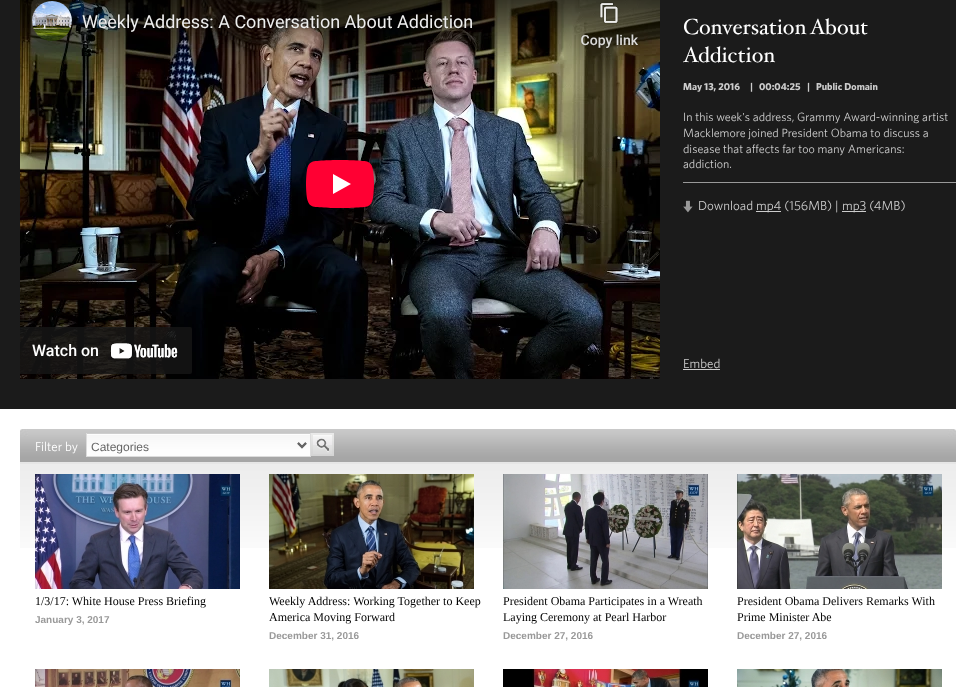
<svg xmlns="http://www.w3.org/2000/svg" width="956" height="687">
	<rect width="100%" height="100%" fill="#FFFFFF" />
	<rect x="0" y="0" width="956" height="409" fill="#1B1B1B" />
	<image x="20" y="0" width="640" height="379" href="assets/img1.png" />
	<g font-family="'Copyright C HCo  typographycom'" font-size="21.75" font-weight="300" fill="#FFFFFF">
		<text x="683" y="34">Conversation About</text>
		<text x="683" y="62">Addiction</text>
	</g>
	<g font-family="'Copyright C HCo  typographycom'" font-size="10" fill="#CCCCCC">
		<text x="683" y="90">May 13, 2016</text>
		<text x="750" y="90">|</text>
		<text x="759" y="90">00:04:25</text>
		<text x="807" y="90">|</text>
		<text x="816" y="90">Public Domain</text>
	</g>
	<g font-family="'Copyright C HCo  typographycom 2'" font-size="12" font-weight="300" fill="#CCCCCC">
		<text x="683" y="121">In this week's address, Grammy Award-winning artist</text>
		<text x="683" y="137">Macklemore joined President Obama to discuss a</text>
		<text x="683" y="153">disease that affects far too many Americans:</text>
		<text x="683" y="168">addiction.</text>
	</g>
	<rect x="683" y="182" width="273" height="1" fill="#999999" />
	<image x="683" y="200" width="10" height="13" href="assets/img2.png" />
	<text x="698" y="210" font-family="'Copyright C HCo  typographycom 2'" font-size="13" font-weight="300" fill="#CCCCCC">Download</text>
	<rect x="756" y="211" width="25" height="1" fill="#CCCCCC" />
	<text x="756" y="210" font-family="'Copyright C HCo  typographycom 2'" font-size="13" font-weight="300" fill="#CCCCCC">mp4 (156MB) |</text>
	<rect x="842" y="211" width="24" height="1" fill="#CCCCCC" />
	<g font-family="'Copyright C HCo  typographycom 2'" font-size="13" font-weight="300" fill="#CCCCCC">
		<text x="842" y="210">mp3 (4MB)</text>
		<text x="683" y="368">Embed</text>
	</g>
	<rect x="683" y="369" width="37" height="1" fill="#CCCCCC" />
	<rect x="20" y="462" width="936" height="2" fill="#E6E6E6" />
	<image x="20" y="429" width="936" height="33" href="assets/img3.png" />
	<text x="35" y="451" font-family="'Copyright C HCo  typographycom 2'" font-size="13" font-weight="300" fill="#FFFFFF">Filter by</text>
	<rect x="87" y="434" width="223" height="22" fill="#FDFDFD" />
	<image x="87" y="435" width="223" height="14" href="assets/img4.png" />
	<rect x="86" y="433" width="225" height="1" fill="#CECECE" />
	<rect x="310" y="433" width="1" height="24" fill="#DCDCDC" />
	<rect x="86" y="456" width="225" height="1" fill="#DCDCDC" />
	<rect x="86" y="433" width="1" height="24" fill="#DCDCDC" />
	<path d="M298 443L302 447L306 443" fill="none" stroke="#666666" stroke-width="2" />
	<text x="91" y="451" font-family="Liberation Sans" font-size="12" fill="#666666">Categories</text>
	<image x="311" y="433" width="23" height="23" href="assets/img5.png" />
	<image x="20" y="464" width="936" height="84" href="assets/img6.png" />
	<image x="35" y="474" width="205" height="115" href="assets/img7.png" />
	<text x="35" y="605" font-family="Liberation Serif" font-size="12" fill="#000000">1/3/17: White House Press Briefing</text>
	<text x="35" y="623" font-family="Liberation Sans" font-size="10" font-weight="700" fill="#999999">January 3, 2017</text>
	<image x="269" y="474" width="205" height="115" href="assets/img8.png" />
	<g font-family="Liberation Serif" font-size="12" fill="#000000">
		<text x="269" y="605">Weekly Address: Working Together to Keep</text>
		<text x="269" y="621">America Moving Forward</text>
	</g>
	<text x="269" y="639" font-family="Liberation Sans" font-size="10" font-weight="700" fill="#999999">December 31, 2016</text>
	<image x="503" y="474" width="205" height="115" href="assets/img9.png" />
	<g font-family="Liberation Serif" font-size="12" fill="#000000">
		<text x="503" y="605">President Obama Participates in a Wreath</text>
		<text x="503" y="621">Laying Ceremony at Pearl Harbor</text>
	</g>
	<text x="503" y="639" font-family="Liberation Sans" font-size="10" font-weight="700" fill="#999999">December 27, 2016</text>
	<image x="737" y="474" width="205" height="115" href="assets/img10.png" />
	<g font-family="Liberation Serif" font-size="12" fill="#000000">
		<text x="737" y="605">President Obama Delivers Remarks With</text>
		<text x="737" y="621">Prime Minister Abe</text>
	</g>
	<text x="737" y="639" font-family="Liberation Sans" font-size="10" font-weight="700" fill="#999999">December 27, 2016</text>
	<image x="35" y="669" width="205" height="18" href="assets/img11.png" />
	<image x="269" y="669" width="205" height="18" href="assets/img12.png" />
	<image x="503" y="669" width="205" height="18" href="assets/img13.png" />
	<image x="737" y="669" width="205" height="18" href="assets/img14.png" />
</svg>
